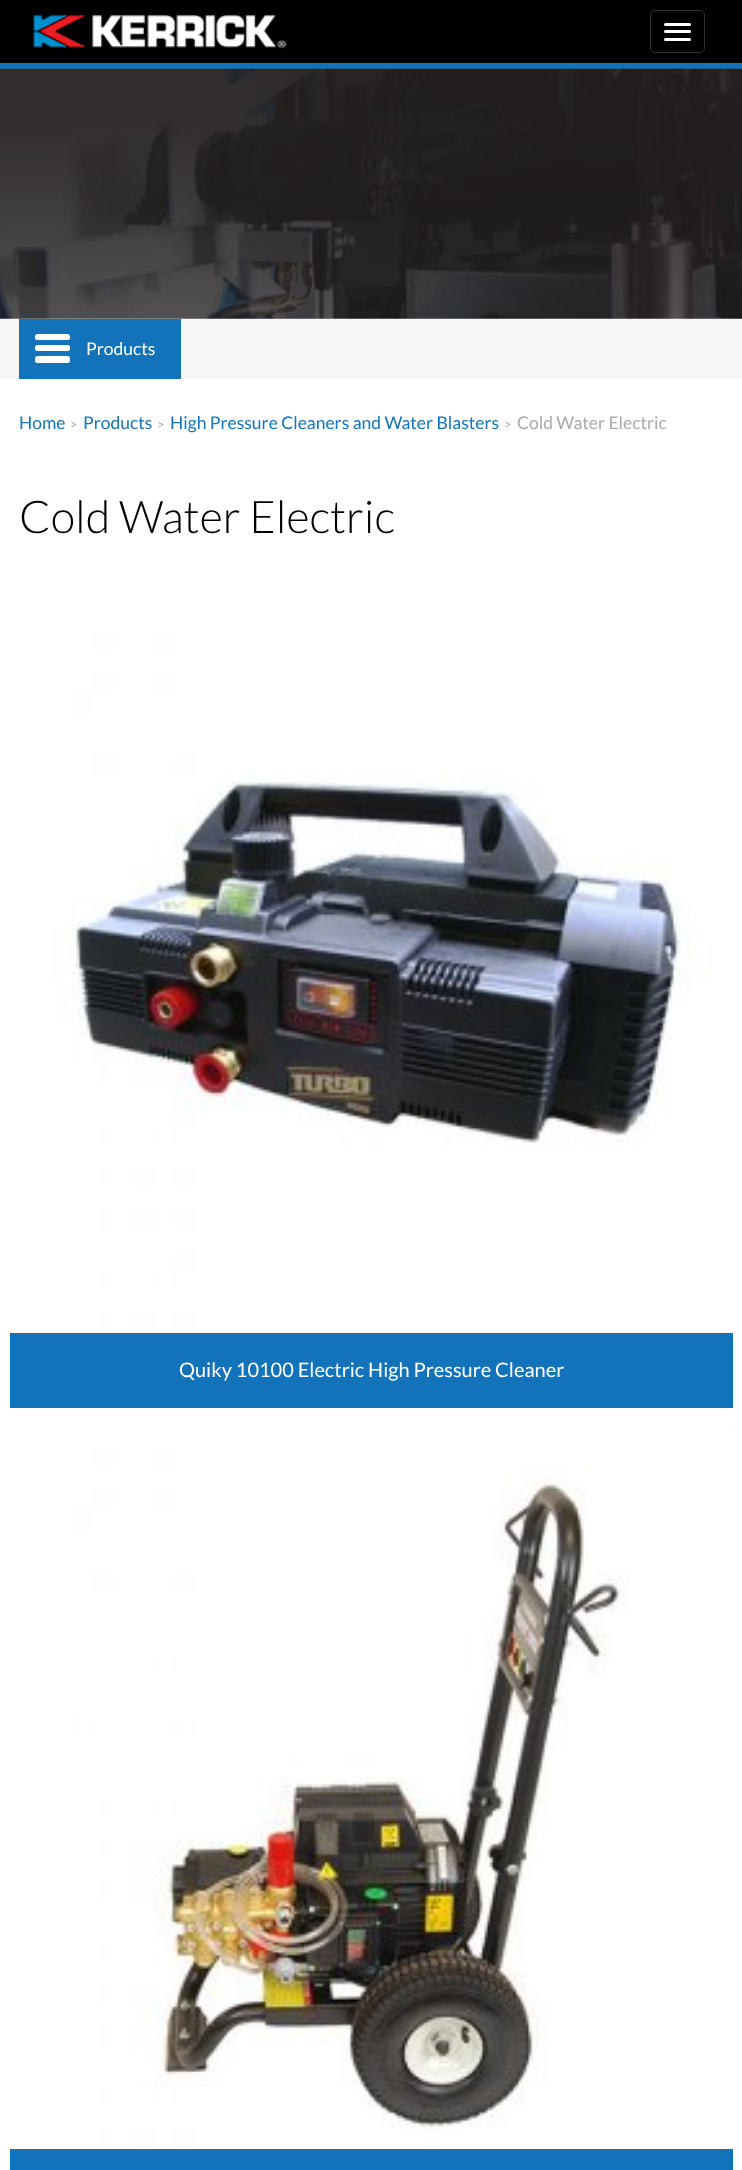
<svg xmlns="http://www.w3.org/2000/svg" width="742" height="2170">
	<rect width="100%" height="100%" fill="#FFFFFF" />
	<rect x="0" y="0" width="742" height="63" fill="#000000" />
	<rect x="0" y="63" width="742" height="6" fill="#1373BA" />
	<image x="33" y="14" width="254" height="35" href="assets/img1.png" />
	<rect x="650.5" y="10.5" width="54" height="42" rx="4.5" fill="none" stroke="#333333" />
	<rect x="664" y="23" width="27" height="3" rx="1.5" fill="#FFFFFF" />
	<rect x="664" y="30" width="27" height="3" rx="1.5" fill="#FFFFFF" />
	<rect x="664" y="38" width="27" height="3" rx="1.5" fill="#FFFFFF" />
	<image x="0" y="68" width="742" height="251" href="assets/img2.png" />
	<rect x="0" y="319" width="742" height="60" fill="#F6F6F7" />
	<rect x="19" y="319" width="162" height="60" fill="#1373BA" />
	<rect x="35" y="345" width="35" height="6" rx="2.5" fill="#FFFFFF" />
	<rect x="35" y="334" width="35" height="6" rx="2.5" fill="#FFFFFF" />
	<rect x="35" y="356" width="35" height="7" rx="2.5" fill="#FFFFFF" />
	<text x="86" y="355" font-family="Lato" font-size="17.5" fill="#FFFFFF">Products</text>
	<text x="19" y="429" font-family="Lato" font-size="17.5" fill="#1373BA">Home</text>
	<text x="70" y="429" font-family="Lato" font-size="13" fill="#AAAAAA">&gt;</text>
	<text x="83" y="429" font-family="Lato" font-size="17.5" fill="#1373BA">Products</text>
	<text x="157" y="429" font-family="Lato" font-size="13" fill="#AAAAAA">&gt;</text>
	<text x="170" y="429" font-family="Lato" font-size="17.5" fill="#1373BA">High Pressure Cleaners and Water Blasters</text>
	<text x="504" y="429" font-family="Lato" font-size="13" fill="#AAAAAA">&gt;</text>
	<text x="517" y="429" font-family="Lato" font-size="17.5" fill="#AAAAAA">Cold Water Electric</text>
	<text x="19" y="533" font-family="Lato" font-size="45" font-weight="300" fill="#000000">Cold Water Electric</text>
	<rect x="10" y="610" width="723" height="723" fill="#F6F6F7" />
	<image x="10" y="610" width="723" height="723" href="assets/img3.png" />
	<rect x="10" y="1333" width="723" height="75" fill="#1373BA" />
	<text x="179" y="1377" font-family="Lato" font-size="20" fill="#FFFFFF">Quiky 10100 Electric High Pressure Cleaner</text>
	<rect x="10" y="1426" width="723" height="723" fill="#F6F6F7" />
	<image x="10" y="1426" width="723" height="723" href="assets/img4.png" />
	<rect x="10" y="2149" width="723" height="21" fill="#1373BA" />
</svg>
